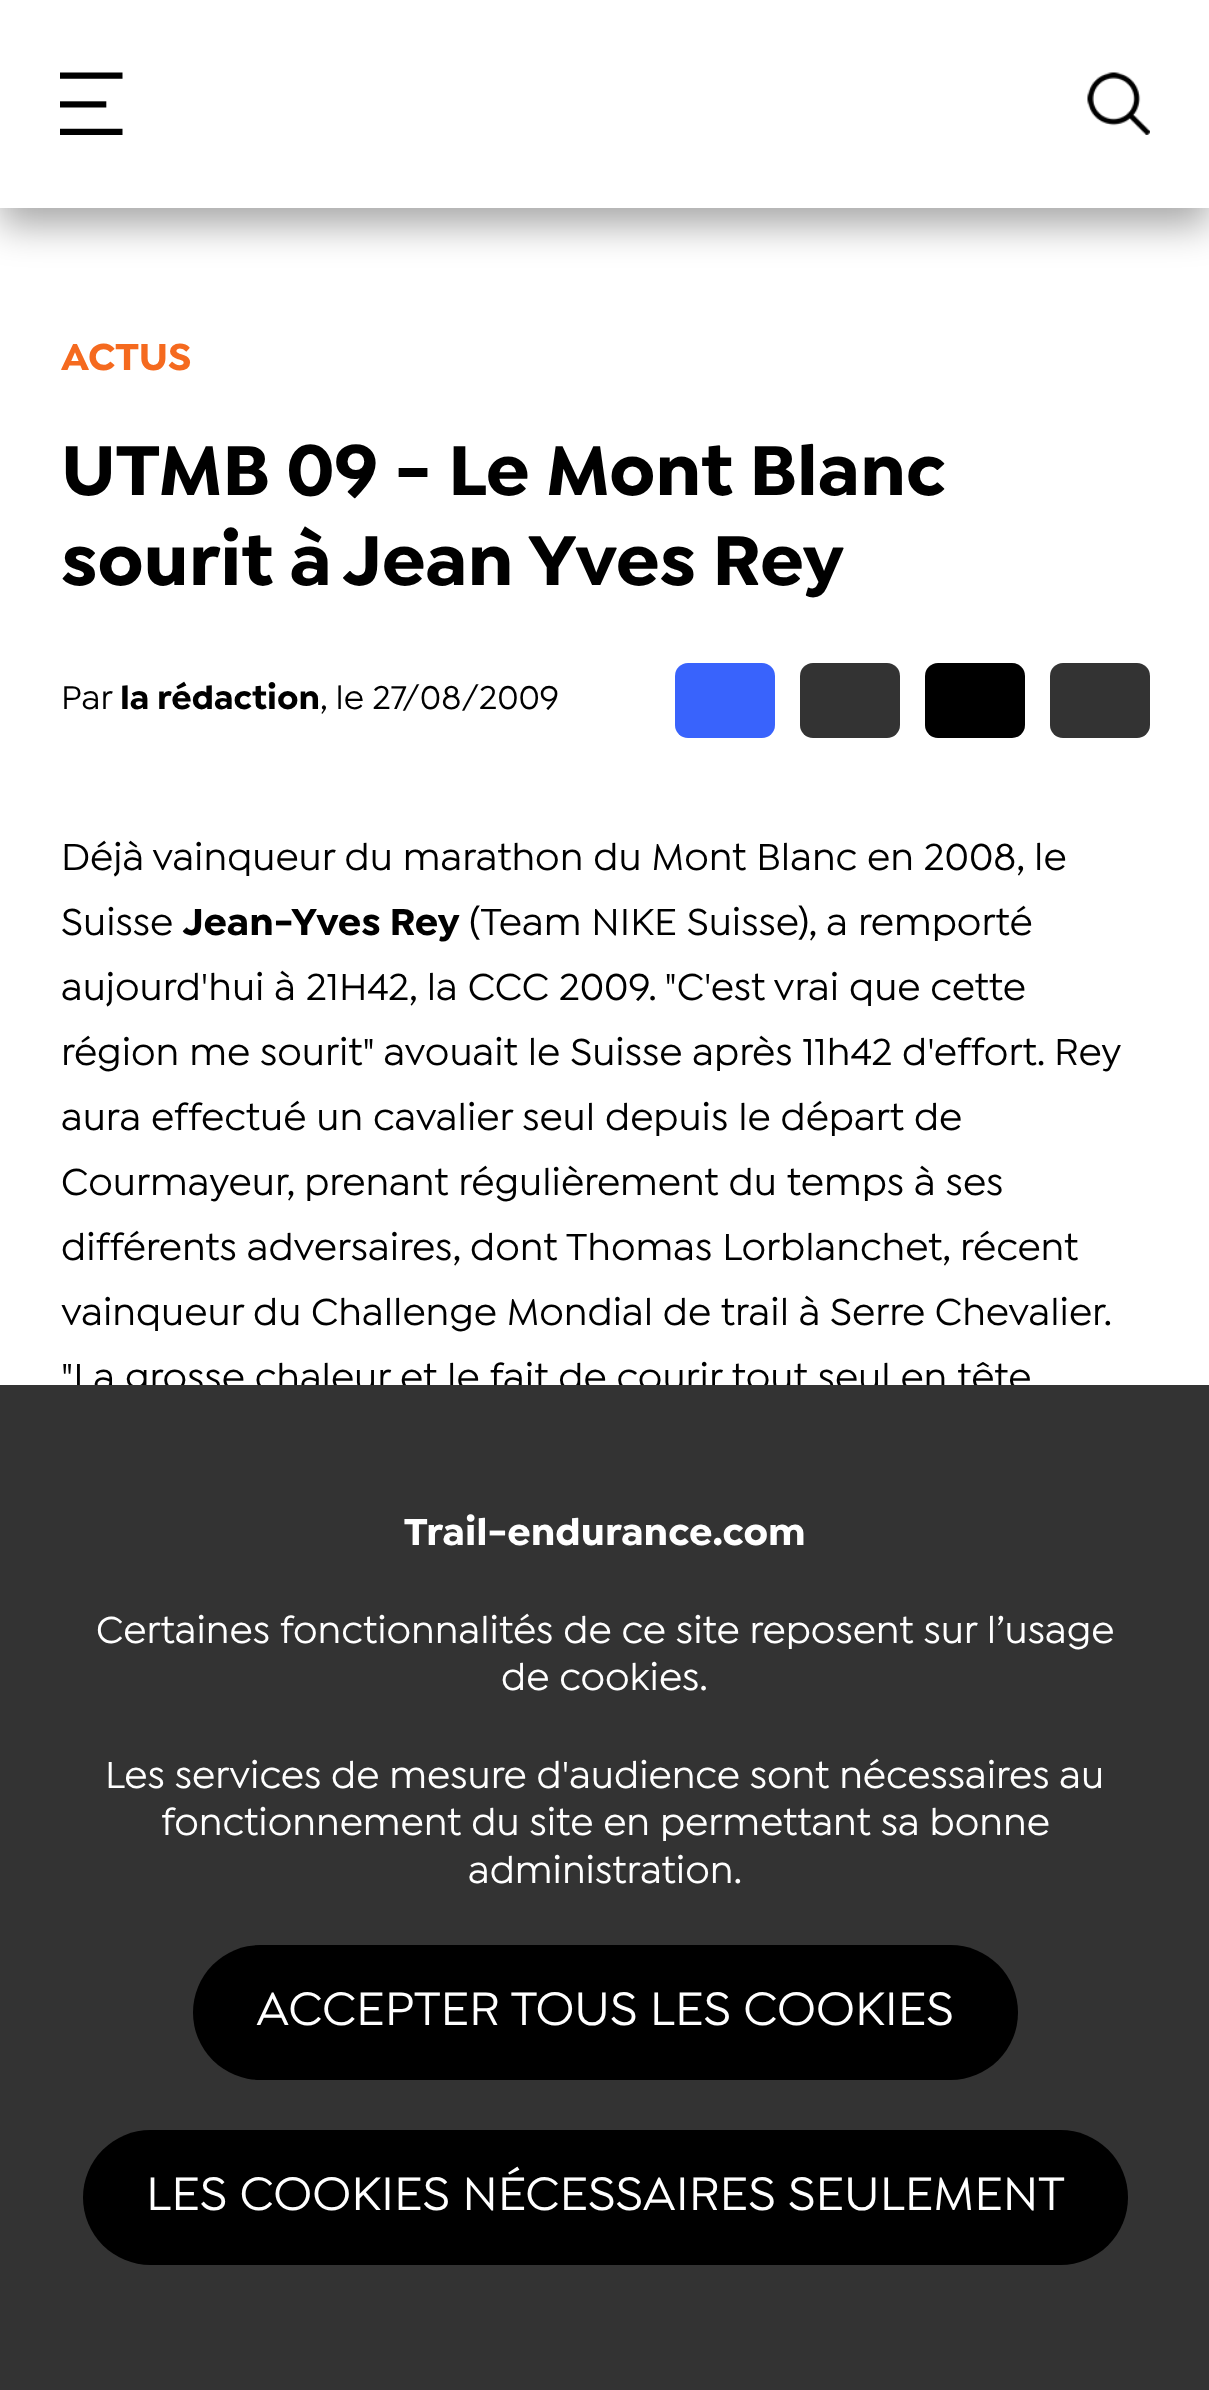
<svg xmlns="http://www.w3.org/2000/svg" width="1209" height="2390">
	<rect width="100%" height="100%" fill="#FFFFFF" />
	<rect x="0" y="18" width="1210" height="207" fill="#000000" fill-opacity="0.35" filter="blur(19px)" />
	<rect x="0" y="0" width="1209" height="208" fill="#FFFFFF" />
	<image x="60" y="72" width="63" height="63" href="assets/img1.png" />
	<image x="1087" y="72" width="63" height="63" href="assets/img2.png" />
	<text x="61" y="370" font-family="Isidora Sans" font-size="40" font-weight="700" fill="#F56A1F">ACTUS</text>
	<g font-family="Isidora Sans" font-size="75" font-weight="700" fill="#000000">
		<text x="61" y="495">UTMB 09 - Le Mont Blanc</text>
		<text x="61" y="585">sourit à Jean Yves Rey</text>
	</g>
	<text x="61" y="709" font-family="Isidora Sans" font-size="35" font-weight="500" fill="#000000">Par</text>
	<text x="120" y="709" font-family="Isidora Sans" font-size="35" font-weight="700" fill="#000000">la rédaction</text>
	<text x="320" y="709" font-family="Isidora Sans" font-size="35" font-weight="500" fill="#000000">, le 27/08/2009</text>
	<rect x="675" y="663" width="100" height="75" rx="13" fill="#3963FC" />
	<rect x="800" y="663" width="100" height="75" rx="13" fill="#333333" />
	<rect x="925" y="663" width="100" height="75" rx="13" fill="#000000" />
	<rect x="1050" y="663" width="100" height="75" rx="13" fill="#333333" />
	<g font-family="Isidora Sans" font-size="40" font-weight="500" fill="#000000">
		<text x="61" y="870">Déjà vainqueur du marathon du Mont Blanc en 2008, le</text>
		<text x="61" y="935">Suisse</text>
	</g>
	<text x="183" y="935" font-family="Isidora Sans" font-size="40" font-weight="700" fill="#000000">Jean-Yves Rey</text>
	<g font-family="Isidora Sans" font-size="40" font-weight="500" fill="#000000">
		<text x="469" y="935">(Team NIKE Suisse), a remporté</text>
		<text x="61" y="1000">aujourd'hui à 21H42, la CCC 2009. "C'est vrai que cette</text>
		<text x="61" y="1065">région me sourit" avouait le Suisse après 11h42 d'effort. Rey</text>
		<text x="61" y="1130">aura effectué un cavalier seul depuis le départ de</text>
		<text x="61" y="1195">Courmayeur, prenant régulièrement du temps à ses</text>
		<text x="61" y="1260">différents adversaires, dont Thomas Lorblanchet, récent</text>
		<text x="61" y="1325" word-spacing="-0.25">vainqueur du Challenge Mondial de trail à Serre Chevalier.</text>
		<text x="61" y="1390">"La grosse chaleur et le fait de courir tout seul en tête</text>
	</g>
	<rect x="0" y="1385" width="1209" height="1005" fill="#333333" />
	<text x="404" y="1545" font-family="Isidora Sans" font-size="40" font-weight="700" fill="#FFFFFF">Trail-endurance.com</text>
	<g font-family="Isidora Sans" font-size="40" font-weight="500" fill="#FFFFFF">
		<text x="96" y="1643">Certaines fonctionnalités de ce site reposent sur l’usage</text>
		<text x="501" y="1690">de cookies.</text>
		<text x="105" y="1788">Les services de mesure d'audience sont nécessaires au</text>
		<text x="161" y="1835">fonctionnement du site en permettant sa bonne</text>
		<text x="468" y="1883">administration.</text>
	</g>
	<rect x="193" y="1945" width="825" height="135" rx="67.5" fill="#000000" />
	<text x="256" y="2025" font-family="Isidora Sans" font-size="50" font-weight="500" fill="#FFFFFF">ACCEPTER TOUS LES COOKIES</text>
	<rect x="83" y="2130" width="1045" height="135" rx="67.5" fill="#000000" />
	<text x="146" y="2210" font-family="Isidora Sans" font-size="50" font-weight="500" fill="#FFFFFF">LES COOKIES NÉCESSAIRES SEULEMENT</text>
</svg>
